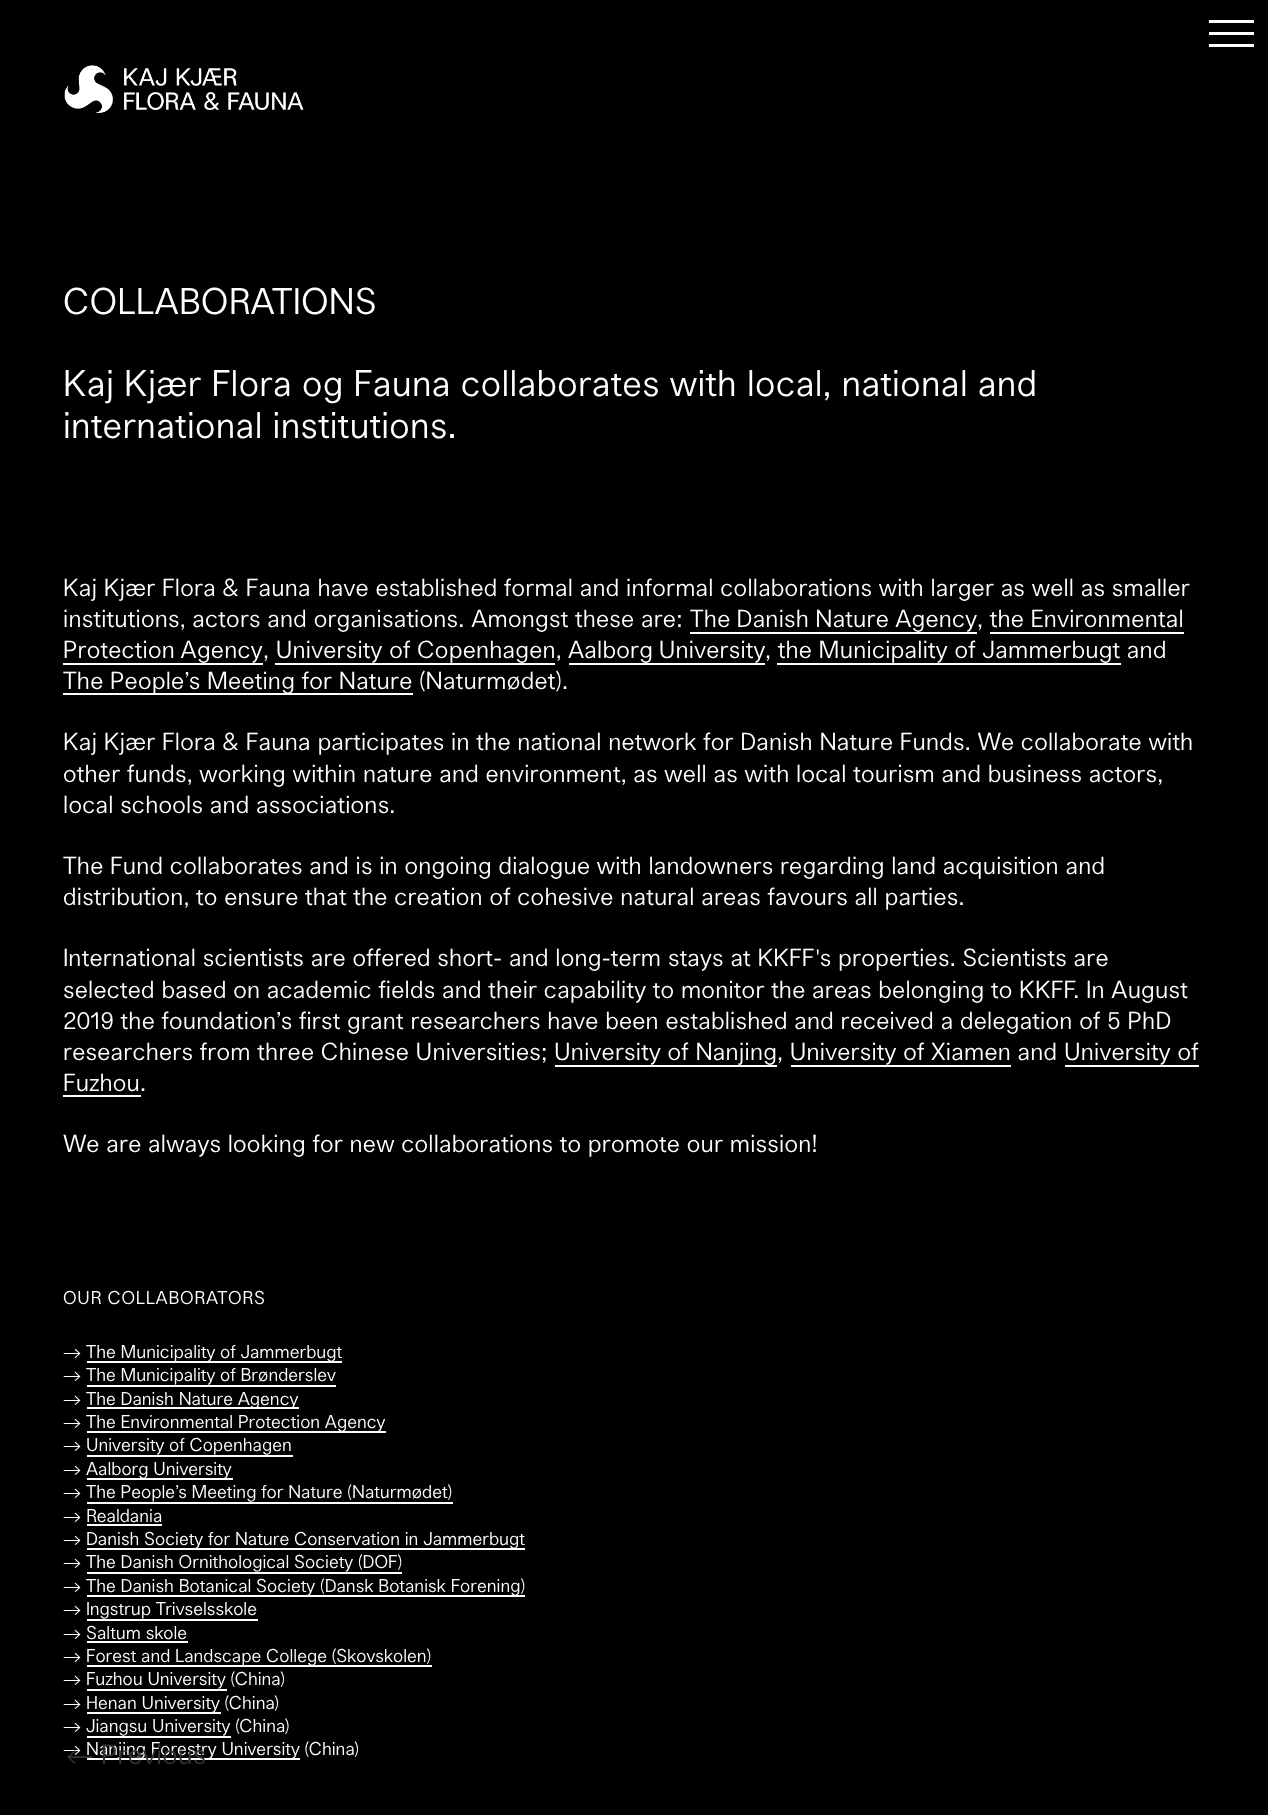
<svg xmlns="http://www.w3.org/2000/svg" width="1268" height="1815">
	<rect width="100%" height="100%" fill="#000000" />
	<rect x="1209" y="32" width="45" height="3" fill="#FFFFFF" />
	<rect x="1209" y="20" width="45" height="3" fill="#FFFFFF" />
	<rect x="1209" y="44" width="45" height="3" fill="#FFFFFF" />
	<image x="64" y="65" width="240" height="48" href="assets/img1.png" />
	<g font-family="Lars" font-size="36" font-weight="300" letter-spacing="0.35" fill="#FFFFFF">
		<text x="63" y="314">COLLABORATIONS</text>
		<text x="63" y="396">Kaj Kjær Flora og Fauna collaborates with local, national and</text>
		<text x="63" y="438">international institutions.</text>
	</g>
	<g font-family="Lars" font-size="24" font-weight="300" letter-spacing="0.24" fill="#FFFFFF">
		<text x="63" y="596">Kaj Kjær Flora &amp; Fauna have established formal and informal collaborations with larger as well as smaller</text>
		<text x="63" y="627">institutions, actors and organisations. Amongst these are:</text>
		<text x="690" y="627" word-spacing="-0.5">The Danish Nature Agency</text>
	</g>
	<rect x="690" y="632" width="287" height="2" fill="#FFFFFF" />
	<g font-family="Lars" font-size="24" font-weight="300" letter-spacing="0.24" fill="#FFFFFF">
		<text x="977" y="627">, the Environmental</text>
		<text x="63" y="658" word-spacing="-1">Protection Agency</text>
	</g>
	<rect x="990" y="632" width="194" height="2" fill="#FFFFFF" />
	<rect x="63" y="663" width="200" height="2" fill="#FFFFFF" />
	<g font-family="Lars" font-size="24" font-weight="300" letter-spacing="0.24" fill="#FFFFFF">
		<text x="263" y="658">, University of Copenhagen,</text>
		<text x="568" y="658" word-spacing="-1">Aalborg University</text>
	</g>
	<rect x="569" y="663" width="196" height="2" fill="#FFFFFF" />
	<text x="765" y="658" font-family="Lars" font-size="24" font-weight="300" letter-spacing="0.24" fill="#FFFFFF">, the Municipality of Jammerbugt and</text>
	<rect x="275" y="663" width="280" height="2" fill="#FFFFFF" />
	<rect x="777" y="663" width="344" height="2" fill="#FFFFFF" />
	<rect x="63" y="693" width="350" height="2" fill="#FFFFFF" />
	<g font-family="Lars" font-size="24" font-weight="300" letter-spacing="0.24" fill="#FFFFFF">
		<text x="63" y="689">The People’s Meeting for Nature (Naturmødet).</text>
		<text x="63" y="750">Kaj Kjær Flora &amp; Fauna participates in the national network for Danish Nature Funds. We collaborate with</text>
		<text x="63" y="782">other funds, working within nature and environment, as well as with local tourism and business actors,</text>
		<text x="63" y="813">local schools and associations.</text>
		<text x="63" y="874">The Fund collaborates and is in ongoing dialogue with landowners regarding land acquisition and</text>
		<text x="63" y="905">distribution, to ensure that the creation of cohesive natural areas favours all parties.</text>
		<text x="63" y="966">International scientists are offered short- and long-term stays at KKFF's properties. Scientists are</text>
		<text x="63" y="998">selected based on academic fields and their capability to monitor the areas belonging to KKFF. In August</text>
		<text x="63" y="1029">2019 the foundation’s first grant researchers have been established and received a delegation of 5 PhD</text>
		<text x="63" y="1060">researchers from three Chinese Universities; University of Nanjing, University of Xiamen and University of</text>
	</g>
	<rect x="555" y="1065" width="222" height="2" fill="#FFFFFF" />
	<rect x="791" y="1065" width="220" height="2" fill="#FFFFFF" />
	<rect x="1065" y="1065" width="134" height="2" fill="#FFFFFF" />
	<text x="63" y="1091" font-family="Lars" font-size="24" font-weight="300" letter-spacing="0.24" fill="#FFFFFF">Fuzhou.</text>
	<rect x="63" y="1095" width="78" height="2" fill="#FFFFFF" />
	<text x="63" y="1152" font-family="Lars" font-size="24" font-weight="300" letter-spacing="0.24" fill="#FFFFFF">We are always looking for new collaborations to promote our mission!</text>
	<text x="63" y="1304" font-family="Lars" font-size="18" font-weight="300" letter-spacing="0.75" fill="#FFFFFF">OUR COLLABORATORS</text>
	<text x="63" y="1358" font-family="Lars" font-size="18" font-weight="300" fill="#FFFFFF">→</text>
	<rect x="87" y="1361" width="255" height="2" fill="#FFFFFF" />
	<g font-family="Lars" font-size="18" font-weight="300" fill="#FFFFFF">
		<text x="86" y="1358">The Municipality of Jammerbugt</text>
		<text x="63" y="1381">→ The Municipality of Brønderslev</text>
	</g>
	<rect x="87" y="1385" width="249" height="2" fill="#FFFFFF" />
	<text x="63" y="1405" font-family="Lars" font-size="18" font-weight="300" fill="#FFFFFF">→</text>
	<rect x="87" y="1407" width="212" height="2" fill="#FFFFFF" />
	<g font-family="Lars" font-size="18" font-weight="300" fill="#FFFFFF">
		<text x="86" y="1405">The Danish Nature Agency</text>
		<text x="63" y="1428">→</text>
	</g>
	<rect x="87" y="1431" width="299" height="2" fill="#FFFFFF" />
	<g font-family="Lars" font-size="18" font-weight="300" fill="#FFFFFF">
		<text x="86" y="1428">The Environmental Protection Agency</text>
		<text x="63" y="1451">→ University of Copenhagen</text>
	</g>
	<rect x="87" y="1455" width="206" height="2" fill="#FFFFFF" />
	<text x="63" y="1475" font-family="Lars" font-size="18" font-weight="300" fill="#FFFFFF">→</text>
	<rect x="87" y="1478" width="146" height="2" fill="#FFFFFF" />
	<g font-family="Lars" font-size="18" font-weight="300" fill="#FFFFFF">
		<text x="86" y="1475">Aalborg University</text>
		<text x="63" y="1498">→ The People’s Meeting for Nature (Naturmødet)</text>
	</g>
	<rect x="87" y="1502" width="366" height="2" fill="#FFFFFF" />
	<text x="63" y="1522" font-family="Lars" font-size="18" font-weight="300" fill="#FFFFFF">→ Realdania</text>
	<rect x="87" y="1524" width="75" height="2" fill="#FFFFFF" />
	<text x="63" y="1545" font-family="Lars" font-size="18" font-weight="300" fill="#FFFFFF">→</text>
	<rect x="87" y="1548" width="438" height="2" fill="#FFFFFF" />
	<g font-family="Lars" font-size="18" font-weight="300" fill="#FFFFFF">
		<text x="86" y="1545">Danish Society for Nature Conservation in Jammerbugt</text>
		<text x="63" y="1568">→ The Danish Ornithological Society (DOF)</text>
	</g>
	<rect x="87" y="1572" width="315" height="2" fill="#FFFFFF" />
	<text x="63" y="1592" font-family="Lars" font-size="18" font-weight="300" fill="#FFFFFF">→</text>
	<rect x="87" y="1595" width="438" height="2" fill="#FFFFFF" />
	<g font-family="Lars" font-size="18" font-weight="300" fill="#FFFFFF">
		<text x="86" y="1592">The Danish Botanical Society (Dansk Botanisk Forening)</text>
		<text x="63" y="1615">→ Ingstrup Trivselsskole</text>
	</g>
	<rect x="87" y="1619" width="171" height="2" fill="#FFFFFF" />
	<text x="63" y="1639" font-family="Lars" font-size="18" font-weight="300" fill="#FFFFFF">→ Saltum skole</text>
	<rect x="87" y="1641" width="101" height="2" fill="#FFFFFF" />
	<text x="63" y="1662" font-family="Lars" font-size="18" font-weight="300" fill="#FFFFFF">→</text>
	<rect x="87" y="1665" width="345" height="2" fill="#FFFFFF" />
	<g font-family="Lars" font-size="18" font-weight="300" fill="#FFFFFF">
		<text x="86" y="1662">Forest and Landscape College (Skovskolen)</text>
		<text x="63" y="1685">→ Fuzhou University (China)</text>
	</g>
	<rect x="87" y="1689" width="140" height="2" fill="#FFFFFF" />
	<text x="63" y="1709" font-family="Lars" font-size="18" font-weight="300" fill="#FFFFFF">→</text>
	<rect x="87" y="1712" width="134" height="2" fill="#FFFFFF" />
	<g font-family="Lars" font-size="18" font-weight="300" fill="#FFFFFF">
		<text x="86" y="1709">Henan University (China)</text>
		<text x="63" y="1732">→ Jiangsu University (China)</text>
	</g>
	<rect x="87" y="1736" width="144" height="2" fill="#FFFFFF" />
	<text x="63" y="1755" font-family="Lars" font-size="18" font-weight="300" fill="#FFFFFF">→</text>
	<rect x="87" y="1758" width="213" height="2" fill="#FFFFFF" />
	<text x="86" y="1755" font-family="Lars" font-size="18" font-weight="300" fill="#FFFFFF">Nanjing Forestry University (China)</text>
	<text x="66" y="1764" font-family="Lars" font-size="27" font-weight="300" letter-spacing="0.25" fill="#343434">← Previous</text>
</svg>
